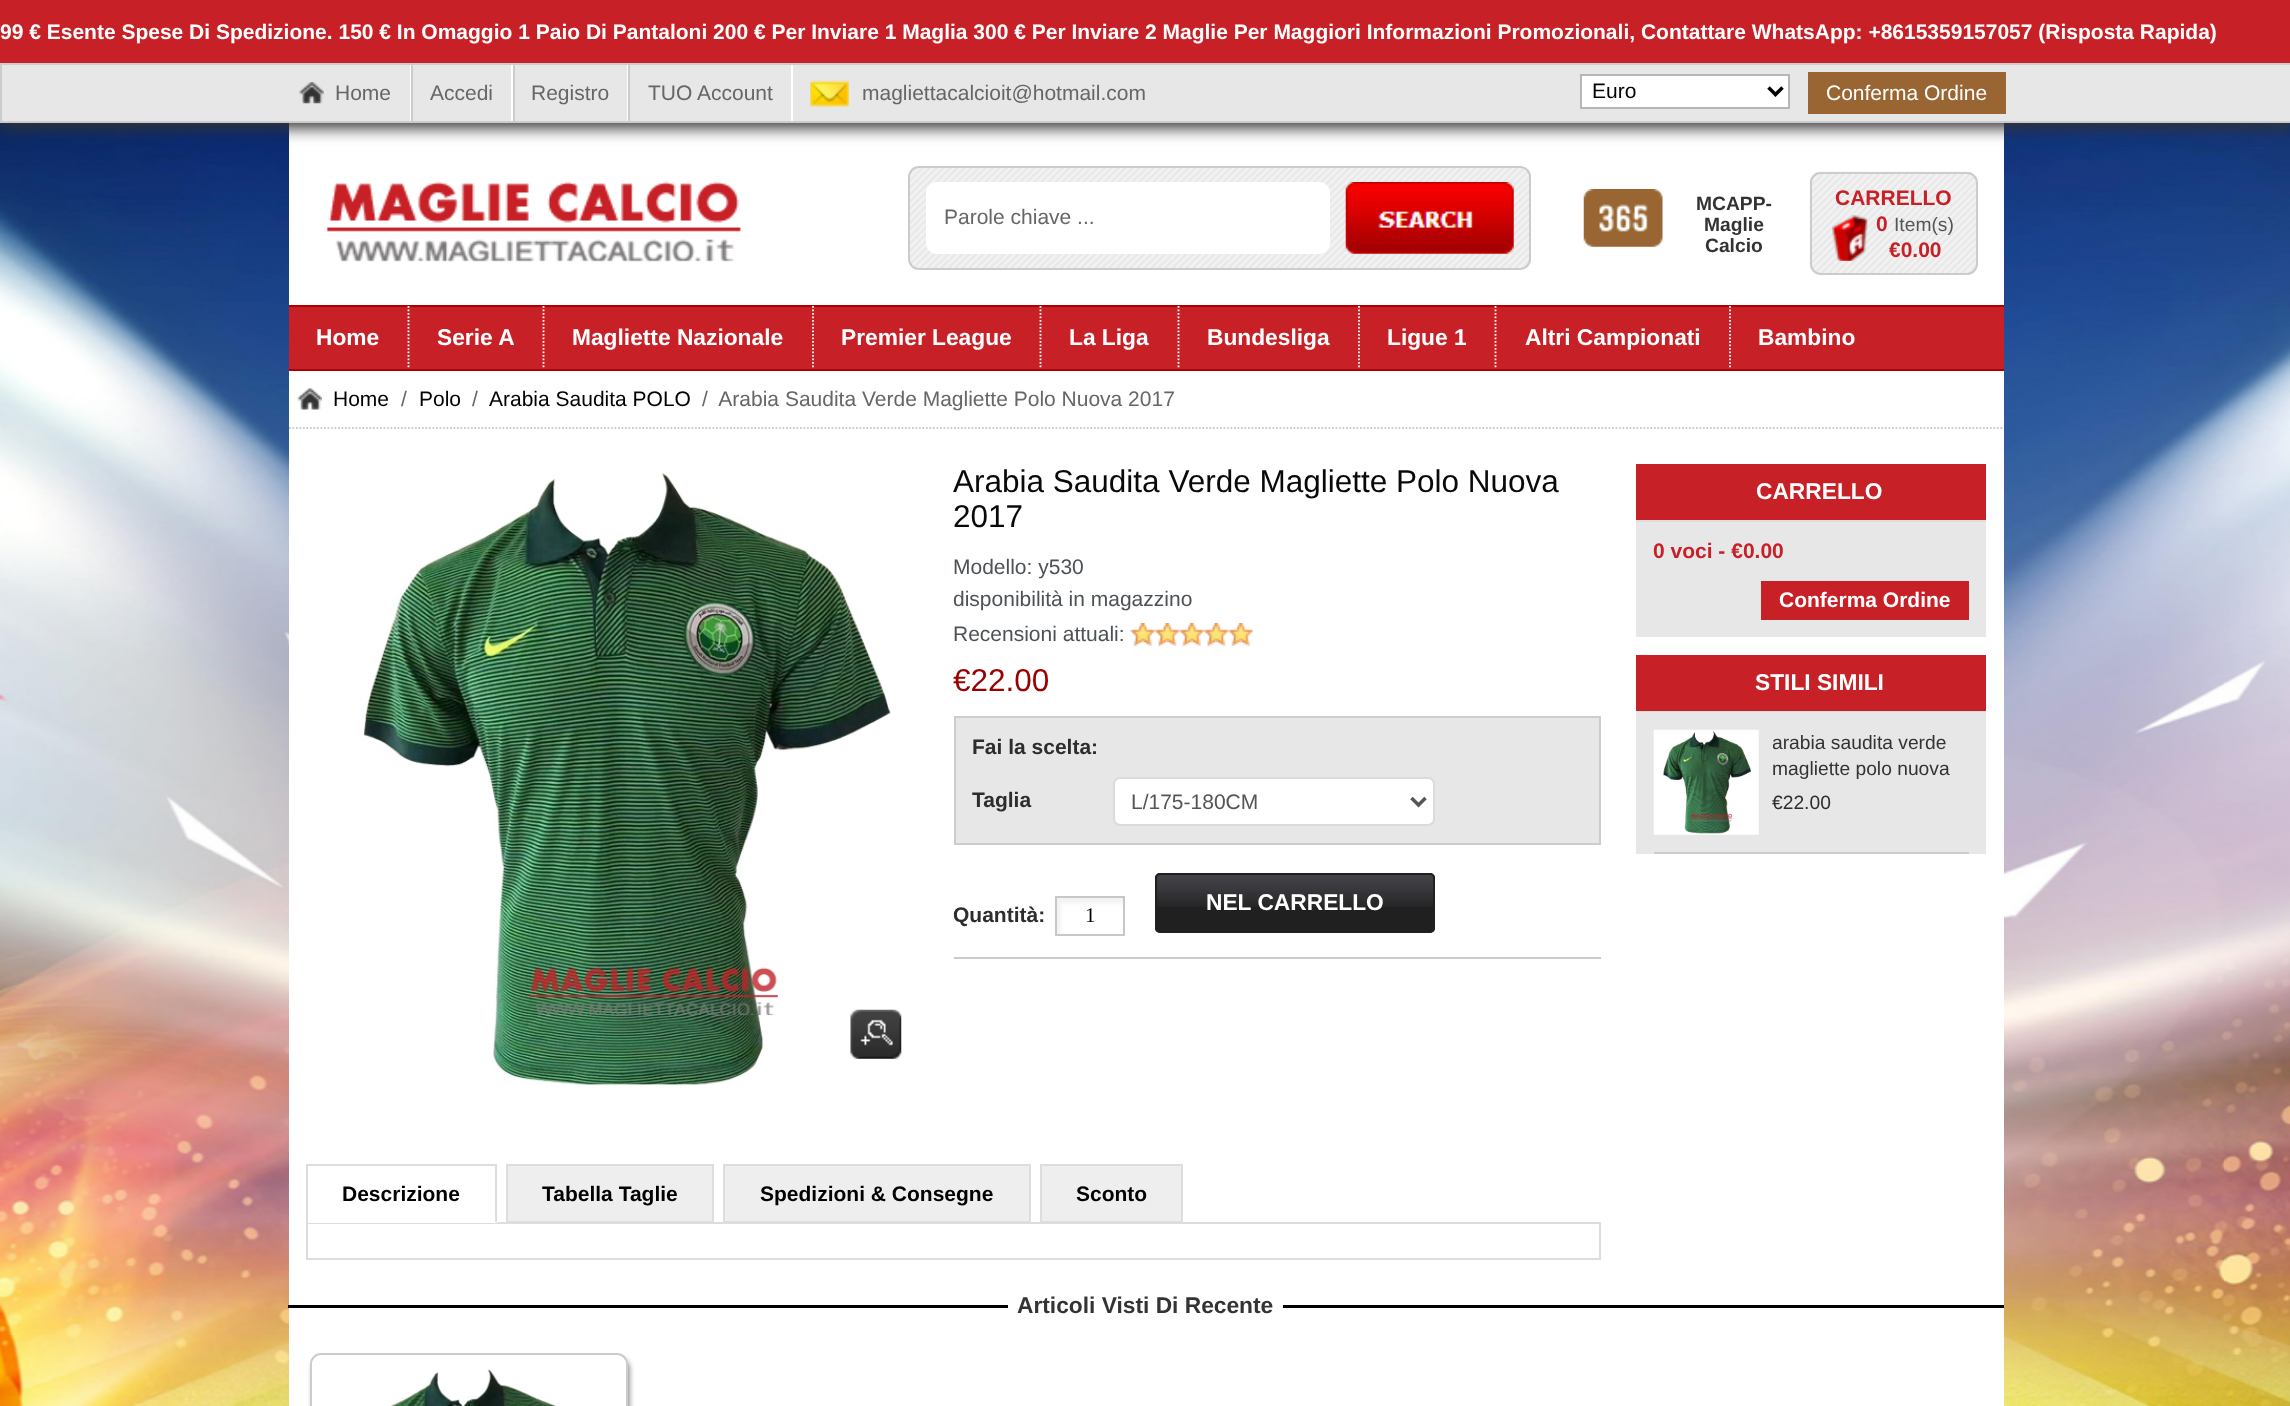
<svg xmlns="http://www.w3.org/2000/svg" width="2290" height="1406">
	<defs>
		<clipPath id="clip1"><rect x="1773" y="730" width="196" height="52" /></clipPath>
		<clipPath id="clip2"><path d="M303 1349H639V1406H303ZM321 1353H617C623 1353 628 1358 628 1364V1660C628 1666 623 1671 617 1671H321C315 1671 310 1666 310 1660V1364C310 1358 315 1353 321 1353Z" clip-rule="evenodd" /></clipPath>
	</defs>
	<rect width="100%" height="100%" fill="#FFFFFF" />
	<image x="0" y="123" width="2290" height="1283" href="assets/img1.png" />
	<rect x="289" y="123" width="1715" height="182" fill="#FFFFFF" />
	<rect x="0" y="68" width="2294" height="60" fill="#333333" filter="blur(8px)" />
	<rect x="0" y="0" width="2290" height="63" fill="#C82027" />
	<text x="0" y="39" font-family="Liberation Sans" font-size="21" font-weight="700" fill="#FFFFFF">99 € Esente Spese Di Spedizione. 150 € In Omaggio 1 Paio Di Pantaloni 200 € Per Inviare 1 Maglia 300 € Per Inviare 2 Maglie Per Maggiori Informazioni Promozionali, Contattare WhatsApp: +8615359157057 (Risposta Rapida)</text>
	<rect x="1" y="64" width="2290" height="58" fill="#E7E7E7" stroke="#CCCCCC" stroke-width="2" />
	<image x="299" y="82" width="25" height="22" href="assets/img2.png" />
	<rect x="410" y="65" width="1" height="56" fill="#FFFFFF" />
	<text x="335" y="100" font-family="Liberation Sans" font-size="21" fill="#666666">Home</text>
	<rect x="511" y="65" width="2" height="56" fill="#FFFFFF" />
	<rect x="411" y="65" width="2" height="56" fill="#CCCCCC" />
	<text x="430" y="100" font-family="Liberation Sans" font-size="21" fill="#666666">Accedi</text>
	<rect x="627" y="65" width="1" height="56" fill="#FFFFFF" />
	<rect x="513" y="65" width="2" height="56" fill="#CCCCCC" />
	<text x="531" y="100" font-family="Liberation Sans" font-size="21" fill="#666666">Registro</text>
	<rect x="791" y="65" width="2" height="56" fill="#FFFFFF" />
	<rect x="628" y="65" width="2" height="56" fill="#CCCCCC" />
	<text x="648" y="100" font-family="Liberation Sans" font-size="21" fill="#666666">TUO Account</text>
	<image x="810" y="80" width="39" height="27" href="assets/img3.png" />
	<text x="862" y="100" font-family="Liberation Sans" font-size="21" fill="#666666">magliettacalcioit@hotmail.com</text>
	<rect x="1581" y="75" width="208" height="33" fill="#FFFFFF" stroke="#B6B6B6" stroke-width="2" />
	<path d="M1768.5 87.5L1775.5 94.5L1782.5 87.5" fill="none" stroke="#010101" stroke-width="3.5" />
	<text x="1592" y="98" font-family="Liberation Sans" font-size="21" fill="#010101">Euro</text>
	<rect x="1808" y="72" width="198" height="42" fill="#996633" />
	<text x="1826" y="100" font-family="Liberation Sans" font-size="21" fill="#FFFFFF">Conferma Ordine</text>
	<image x="326" y="181" width="415" height="81" href="assets/img4.png" />
	<image x="908" y="166" width="623" height="104" href="assets/img5.png" />
	<rect x="909" y="167" width="621" height="102" rx="10" fill="none" stroke="#CCCCCC" stroke-width="2" />
	<rect x="926" y="182" width="404" height="72" rx="11" fill="#FFFFFF" />
	<text x="944" y="224" font-family="Liberation Sans" font-size="21" fill="#666666">Parole chiave ...</text>
	<image x="1345" y="182" width="169" height="72" href="assets/img6.png" />
	<image x="1583" y="189" width="80" height="58" href="assets/img7.png" />
	<g font-family="Liberation Sans" font-size="19.25" font-weight="700" fill="#333333">
		<text x="1696" y="210">MCAPP-</text>
		<text x="1704" y="231">Maglie</text>
		<text x="1705" y="252">Calcio</text>
	</g>
	<image x="1809" y="171" width="169" height="104" href="assets/img8.png" />
	<rect x="1811" y="173" width="166" height="101" rx="10" fill="none" stroke="#CCCCCC" stroke-width="2" />
	<text x="1835" y="205" font-family="Liberation Sans" font-size="21" font-weight="700" fill="#C82027">CARRELLO</text>
	<image x="1832" y="215" width="36" height="46" href="assets/img9.png" />
	<text x="1876" y="231" font-family="Liberation Sans" font-size="21" font-weight="700" fill="#C82027">0</text>
	<text x="1894" y="231" font-family="Liberation Sans" font-size="19.25" fill="#555555">Item(s)</text>
	<text x="1889" y="257" font-family="Liberation Sans" font-size="21" font-weight="700" fill="#C82027">€0.00</text>
	<rect x="289" y="307" width="1715" height="62" fill="#C82027" />
	<rect x="289" y="305" width="1715" height="2" fill="#AE0000" />
	<rect x="289" y="369" width="1715" height="2" fill="#AE0000" />
	<text x="316" y="345" font-family="Liberation Sans" font-size="22.75" font-weight="700" fill="#FFFFFF">Home</text>
	<path d="M408.5 306V369" fill="none" stroke="#FFFFFF" stroke-width="1.8" stroke-dasharray="1.75 1.75" />
	<text x="437" y="345" font-family="Liberation Sans" font-size="22.75" font-weight="700" fill="#FFFFFF">Serie A</text>
	<path d="M543.5 306V369" fill="none" stroke="#FFFFFF" stroke-width="1.8" stroke-dasharray="1.75 1.75" />
	<text x="572" y="345" font-family="Liberation Sans" font-size="22.75" font-weight="700" fill="#FFFFFF">Magliette Nazionale</text>
	<path d="M813 306V369" fill="none" stroke="#FFFFFF" stroke-width="1.8" stroke-dasharray="1.75 1.75" />
	<text x="841" y="345" font-family="Liberation Sans" font-size="22.75" font-weight="700" fill="#FFFFFF">Premier League</text>
	<path d="M1040.5 306V369" fill="none" stroke="#FFFFFF" stroke-width="1.8" stroke-dasharray="1.75 1.75" />
	<text x="1069" y="345" font-family="Liberation Sans" font-size="22.75" font-weight="700" fill="#FFFFFF">La Liga</text>
	<path d="M1178.5 306V369" fill="none" stroke="#FFFFFF" stroke-width="1.8" stroke-dasharray="1.75 1.75" />
	<text x="1207" y="345" font-family="Liberation Sans" font-size="22.75" font-weight="700" fill="#FFFFFF">Bundesliga</text>
	<path d="M1359 306V369" fill="none" stroke="#FFFFFF" stroke-width="1.8" stroke-dasharray="1.75 1.75" />
	<text x="1387" y="345" font-family="Liberation Sans" font-size="22.75" font-weight="700" fill="#FFFFFF">Ligue 1</text>
	<path d="M1495.5 306V369" fill="none" stroke="#FFFFFF" stroke-width="1.8" stroke-dasharray="1.75 1.75" />
	<text x="1525" y="345" font-family="Liberation Sans" font-size="22.75" font-weight="700" fill="#FFFFFF">Altri Campionati</text>
	<path d="M1730 306V369" fill="none" stroke="#FFFFFF" stroke-width="1.8" stroke-dasharray="1.75 1.75" />
	<text x="1758" y="345" font-family="Liberation Sans" font-size="22.75" font-weight="700" fill="#FFFFFF">Bambino</text>
	<rect x="289" y="371" width="1715" height="1035" fill="#FFFFFF" />
	<image x="297" y="388" width="25" height="22" href="assets/img10.png" />
	<path d="M289 428H2004" fill="none" stroke="#CCCCCC" stroke-width="1.8" stroke-dasharray="1.75 1.75" />
	<text x="333" y="406" font-family="Liberation Sans" font-size="21" fill="#010101">Home</text>
	<text x="401" y="406" font-family="Liberation Sans" font-size="21" fill="#666666">/</text>
	<text x="419" y="406" font-family="Liberation Sans" font-size="21" fill="#010101">Polo</text>
	<text x="472" y="406" font-family="Liberation Sans" font-size="21" fill="#666666">/</text>
	<text x="489" y="406" font-family="Liberation Sans" font-size="21" fill="#010101">Arabia Saudita POLO</text>
	<text x="702" y="406" font-family="Liberation Sans" font-size="21" fill="#666666" xml:space="preserve">/  Arabia Saudita Verde Magliette Polo Nuova 2017</text>
	<image x="364" y="473" width="527" height="613" href="assets/img11.png" />
	<image x="850" y="1009" width="52" height="50" href="assets/img12.png" />
	<g font-family="Liberation Sans" font-size="31.5" fill="#090909">
		<text x="953" y="492">Arabia Saudita Verde Magliette Polo Nuova</text>
		<text x="953" y="527">2017</text>
	</g>
	<g font-family="Liberation Sans" font-size="21" fill="#4D5255">
		<text x="953" y="574">Modello: y530</text>
		<text x="953" y="606">disponibilità in magazzino</text>
		<text x="953" y="641">Recensioni attuali:</text>
	</g>
	<image x="1130" y="623" width="123" height="23" href="assets/img13.png" />
	<text x="953" y="691" font-family="Liberation Sans" font-size="31.5" fill="#990000">€22.00</text>
	<rect x="955" y="717" width="645" height="127" fill="#E7E7E7" stroke="#CCCCCC" stroke-width="2" />
	<g font-family="Liberation Sans" font-size="21" font-weight="700" fill="#2D2D2D">
		<text x="972" y="754">Fai la scelta:</text>
		<text x="972" y="807">Taglia</text>
	</g>
	<rect x="1114" y="778" width="320" height="47" rx="6" fill="#FFFFFF" stroke="#DBDBDB" stroke-width="2" />
	<path d="M1411.5 798L1418.5 805L1425.5 798" fill="none" stroke="#555555" stroke-width="3.5" />
	<text x="1131" y="809" font-family="Liberation Sans" font-size="21" fill="#555555">L/175-180CM</text>
	<rect x="954" y="957" width="647" height="2" fill="#CCCCCC" />
	<rect x="1155" y="873" width="280" height="60" rx="5" fill="#212020" />
	<image x="1155" y="875" width="280" height="32" href="assets/img14.png" />
	<rect x="1156" y="874" width="278" height="58" rx="4" fill="none" stroke="#212020" stroke-width="2" />
	<text x="1206" y="910" font-family="Liberation Sans" font-size="22.75" font-weight="700" fill="#FFFFFF">NEL CARRELLO</text>
	<text x="953" y="922" font-family="Liberation Sans" font-size="21" font-weight="700" fill="#2D2D2D">Quantità:</text>
	<image x="1057" y="898" width="66" height="36" href="assets/img15.png" />
	<rect x="1056" y="897" width="68" height="38" fill="none" stroke="#C8C7C7" stroke-width="2" />
	<text x="1085" y="922" font-family="Liberation Serif" font-size="21" fill="#010101">1</text>
	<rect x="306" y="1164" width="191" height="2" fill="#DDDDDD" />
	<rect x="307" y="1223" width="1293" height="36" fill="none" stroke="#DDDDDD" stroke-width="2" />
	<rect x="495" y="1164" width="2" height="59" fill="#DDDDDD" />
	<rect x="306" y="1222" width="191" height="1" fill="#FFFFFF" />
	<rect x="306" y="1164" width="2" height="59" fill="#DDDDDD" />
	<text x="342" y="1201" font-family="Liberation Sans" font-size="21" font-weight="700" fill="#010101">Descrizione</text>
	<rect x="507" y="1165" width="206" height="57" fill="#EEEEEE" stroke="#DDDDDD" stroke-width="2" />
	<text x="542" y="1201" font-family="Liberation Sans" font-size="21" font-weight="700" fill="#010101">Tabella Taglie</text>
	<rect x="724" y="1165" width="306" height="57" fill="#EEEEEE" stroke="#DDDDDD" stroke-width="2" />
	<text x="760" y="1201" font-family="Liberation Sans" font-size="21" font-weight="700" fill="#010101">Spedizioni &amp; Consegne</text>
	<rect x="1041" y="1165" width="141" height="57" fill="#EEEEEE" stroke="#DDDDDD" stroke-width="2" />
	<text x="1076" y="1201" font-family="Liberation Sans" font-size="21" font-weight="700" fill="#010101">Sconto</text>
	<rect x="1636" y="464" width="350" height="56" fill="#C82027" />
	<rect x="1636" y="520" width="350" height="2" fill="#DDDDDD" />
	<text x="1756" y="499" font-family="Liberation Sans" font-size="22.75" font-weight="700" fill="#FFFFFF">CARRELLO</text>
	<rect x="1636" y="522" width="350" height="115" fill="#E7E7E7" />
	<text x="1653" y="558" font-family="Liberation Sans" font-size="21" font-weight="700" fill="#C82027">0 voci - €0.00</text>
	<rect x="1761" y="581" width="208" height="39" fill="#C82027" />
	<text x="1779" y="607" font-family="Liberation Sans" font-size="21" font-weight="700" fill="#FFFFFF">Conferma Ordine</text>
	<rect x="1636" y="655" width="350" height="56" fill="#C82027" />
	<rect x="1636" y="711" width="350" height="1" fill="#DDDDDD" />
	<text x="1755" y="690" font-family="Liberation Sans" font-size="22.75" font-weight="700" fill="#FFFFFF">STILI SIMILI</text>
	<rect x="1636" y="712" width="350" height="142" fill="#E7E7E7" />
	<rect x="1654" y="852" width="315" height="2" fill="#CCCCCC" />
	<image x="1653" y="729" width="106" height="106" href="assets/img16.png" />
	<g clip-path="url(#clip1)">
		<text x="1772" y="749" font-family="Liberation Sans" font-size="19.25" fill="#333333">arabia saudita verde</text>
	</g>
	<text x="1772" y="775" font-family="Liberation Sans" font-size="19.25" fill="#333333">magliette polo nuova</text>
	<text x="1772" y="809" font-family="Liberation Sans" font-size="19.25" fill="#2D2D2D">€22.00</text>
	<rect x="288" y="1305" width="1716" height="3" fill="#000000" />
	<rect x="1008" y="1305" width="275" height="3" fill="#FFFFFF" />
	<text x="1017" y="1313" font-family="Liberation Sans" font-size="22.75" font-weight="700" fill="#333333">Articoli Visti Di Recente</text>
	<g clip-path="url(#clip2)">
		<rect x="312" y="1358" width="318" height="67" rx="11" fill="#999999" filter="blur(2.5px)" />
	</g>
	<rect x="311" y="1354" width="316" height="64" rx="10" fill="none" stroke="#CCCCCC" stroke-width="2" />
	<image x="390" y="1369" width="166" height="37" href="assets/img17.png" />
</svg>
